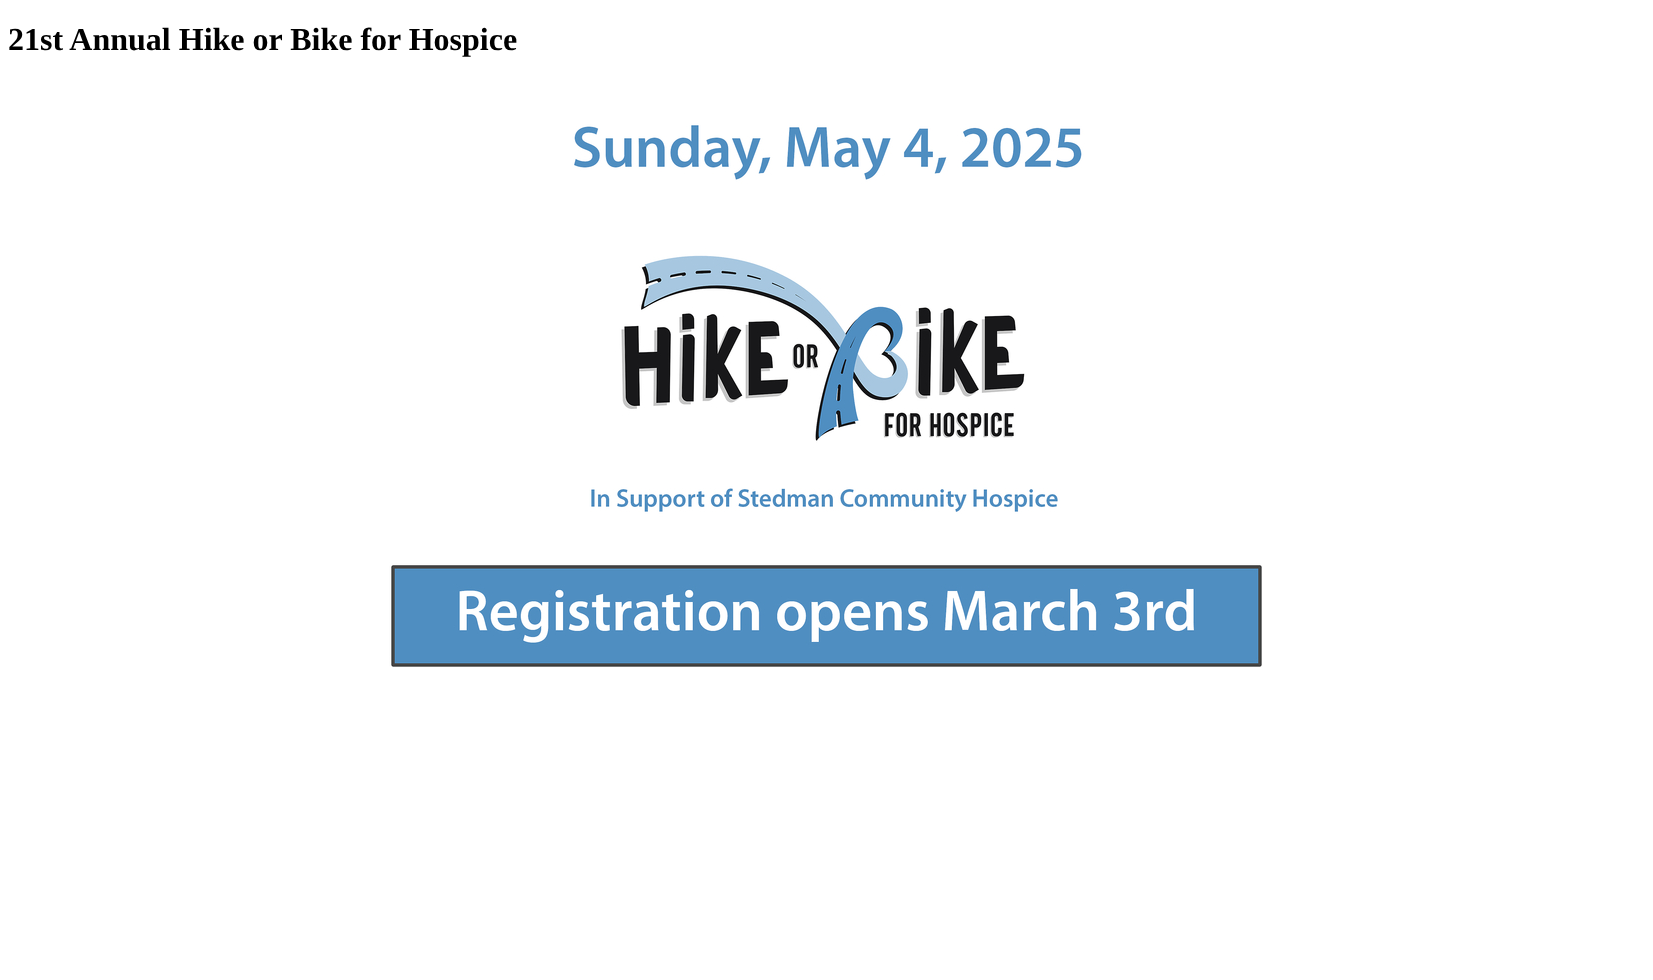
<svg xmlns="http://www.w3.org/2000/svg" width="1653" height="980">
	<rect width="100%" height="100%" fill="#FFFFFF" />
	<text x="8" y="50" font-family="Liberation Serif" font-size="32" font-weight="700" fill="#000000">21st Annual Hike or Bike for Hospice</text>
	<image x="389" y="123" width="873" height="544" href="assets/img1.png" />
</svg>
